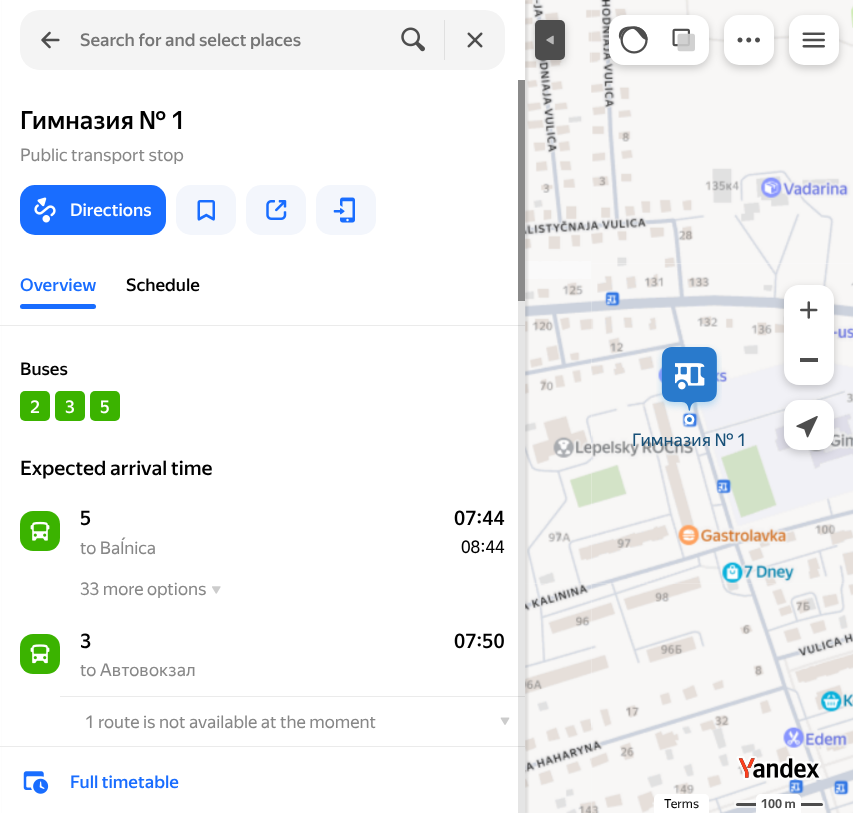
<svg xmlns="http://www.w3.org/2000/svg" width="853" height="813">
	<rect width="100%" height="100%" fill="#FFFFFF" />
	<image x="525" y="0" width="328" height="813" href="assets/img1.png" />
	<image x="525" y="0" width="66" height="261" href="assets/img22.png" />
	<image x="525" y="279" width="67" height="305" href="assets/img24.png" />
	<image x="525" y="584" width="67" height="229" href="assets/img26.png" />
	<rect x="3" y="0" width="525" height="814" fill="#000000" fill-opacity="0.1" filter="blur(1px)" />
	<rect x="535" y="23" width="30" height="40" rx="5" fill="#000000" fill-opacity="0.2" filter="blur(4px)" />
	<rect x="2" y="0" width="523" height="813" fill="#FFFFFF" />
	<rect x="20" y="10" width="485" height="60" rx="20" fill="#F4F4F4" />
	<image x="41" y="31" width="19" height="18" href="assets/img2.png" />
	<text x="80" y="46" font-family="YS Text" font-size="17.5" font-weight="500" fill="#757575">Search for and select places</text>
	<image x="401" y="27" width="24" height="25" href="assets/img3.png" />
	<rect x="444" y="20" width="1" height="40" fill="#E0E0E0" />
	<image x="467" y="32" width="16" height="16" href="assets/img4.png" />
	<image x="591" y="0" width="262" height="264" href="assets/img23.png" />
	<rect x="609" y="18" width="100" height="50" rx="15" fill="#000000" fill-opacity="0.2" filter="blur(4px)" />
	<path d="M624 15H659V65H624C615.5 65 609 58.5 609 50V30C609 21.5 615.5 15 624 15Z" fill="#FFFFFF" />
	<image x="618" y="26" width="30" height="28" href="assets/img5.png" />
	<path d="M659 15H694C702.5 15 709 21.5 709 30V50C709 58.5 702.5 65 694 65H659Z" fill="#FFFFFF" />
	<image x="672" y="28" width="23" height="24" href="assets/img6.png" />
	<rect x="724" y="18" width="50" height="50" rx="15" fill="#000000" fill-opacity="0.2" filter="blur(4px)" />
	<rect x="724" y="15" width="50" height="50" rx="15" fill="#FFFFFF" />
	<image x="737" y="37" width="23" height="6" href="assets/img7.png" />
	<rect x="789" y="18" width="50" height="50" rx="15" fill="#000000" fill-opacity="0.2" filter="blur(4px)" />
	<rect x="789" y="15" width="50" height="50" rx="15" fill="#FFFFFF" />
	<image x="802" y="32" width="23" height="16" href="assets/img8.png" />
	<image x="591" y="263" width="262" height="321" href="assets/img25.png" />
	<rect x="784" y="288" width="50" height="100" rx="15" fill="#000000" fill-opacity="0.2" filter="blur(4px)" />
	<path d="M799 285H819C827.5 285 834 291.5 834 300V335H784V300C784 291.5 790.5 285 799 285Z" fill="#FFFFFF" />
	<image x="800" y="301" width="18" height="18" href="assets/img9.png" />
	<path d="M784 335H834V370C834 378.5 827.5 385 819 385H799C790.5 385 784 378.5 784 370Z" fill="#FFFFFF" />
	<rect x="800" y="358" width="18" height="4" fill="#4D4D4D" />
	<rect x="784" y="403" width="50" height="50" rx="15" fill="#000000" fill-opacity="0.2" filter="blur(4px)" />
	<rect x="784" y="400" width="50" height="50" rx="15" fill="#FFFFFF" />
	<image x="796" y="416" width="22" height="22" href="assets/img10.png" />
	<rect x="535" y="20" width="30" height="40" rx="5" fill="#4D4D4D" />
	<image x="546" y="35" width="8" height="10" href="assets/img11.png" />
	<text x="20" y="129" font-family="YS Text" font-size="25" font-weight="500" fill="#000000">Гимназия № 1</text>
	<text x="20" y="161" font-family="YS Text" font-size="17.5" fill="#878787">Public transport stop</text>
	<rect x="20" y="185" width="146" height="50" rx="15" fill="#196DFF" />
	<image x="34" y="197" width="22" height="26" href="assets/img12.png" />
	<text x="70" y="216" font-family="YS Text" font-size="17.5" font-weight="500" fill="#FFFFFF">Directions</text>
	<rect x="176" y="185" width="60" height="50" rx="15" fill="#F3F6FC" />
	<image x="197" y="200" width="18" height="21" href="assets/img13.png" />
	<rect x="246" y="185" width="60" height="50" rx="15" fill="#F3F6FC" />
	<image x="266" y="200" width="21" height="20" href="assets/img14.png" />
	<rect x="316" y="185" width="60" height="50" rx="15" fill="#F3F6FC" />
	<image x="333" y="197" width="22" height="26" href="assets/img15.png" />
	<text x="20" y="291" font-family="YS Text" font-size="17.5" font-weight="500" fill="#196DFF">Overview</text>
	<text x="126" y="291" font-family="YS Text" font-size="17.5" font-weight="500" fill="#000000">Schedule</text>
	<rect x="20" y="304" width="76" height="5" rx="2.5" fill="#196DFF" />
	<rect x="0" y="325" width="525" height="1" fill="#EBEBEB" />
	<text x="20" y="375" font-family="YS Text" font-size="17.5" font-weight="500" fill="#000000">Buses</text>
	<rect x="20" y="391" width="30" height="30" rx="5" fill="#3BB300" />
	<text x="30" y="413" font-family="YS Text" font-size="17.5" font-weight="500" fill="#FFFFFF">2</text>
	<rect x="55" y="391" width="30" height="30" rx="5" fill="#3BB300" />
	<text x="65" y="413" font-family="YS Text" font-size="17.5" font-weight="500" fill="#FFFFFF">3</text>
	<rect x="90" y="391" width="30" height="30" rx="5" fill="#3BB300" />
	<text x="100" y="413" font-family="YS Text" font-size="17.5" font-weight="500" fill="#FFFFFF">5</text>
	<text x="20" y="475" font-family="YS Text" font-size="20" font-weight="500" fill="#000000">Expected arrival time</text>
	<rect x="20" y="511" width="40" height="40" rx="13" fill="#3BB300" />
	<image x="30" y="521" width="20" height="20" href="assets/img16.png" />
	<text x="80" y="525" font-family="YS Text" font-size="20" font-weight="500" fill="#000000">5</text>
	<text x="80" y="554" font-family="YS Text" font-size="17.5" fill="#878787">to Baĺnica</text>
	<text x="454" y="525" font-family="YS Text" font-size="20" font-weight="500" fill="#000000">07:44</text>
	<text x="461" y="553" font-family="YS Text" font-size="17.5" fill="#000000">08:44</text>
	<text x="80" y="595" font-family="YS Text" font-size="17.5" fill="#878787">33 more options</text>
	<image x="212" y="586" width="9" height="8" href="assets/img17.png" />
	<rect x="20" y="634" width="40" height="40" rx="13" fill="#3BB300" />
	<image x="30" y="644" width="20" height="20" href="assets/img18.png" />
	<text x="80" y="648" font-family="YS Text" font-size="20" font-weight="500" fill="#000000">3</text>
	<text x="80" y="676" font-family="YS Text" font-size="17.5" fill="#878787">to Автовокзал</text>
	<text x="454" y="648" font-family="YS Text" font-size="20" font-weight="500" fill="#000000">07:50</text>
	<rect x="60" y="696" width="465" height="1" fill="#EBEBEB" />
	<text x="85" y="728" font-family="YS Text" font-size="17.5" fill="#878787">1 route is not available at the moment</text>
	<image x="500" y="717" width="10" height="8" href="assets/img19.png" />
	<rect x="0" y="746" width="525" height="1" fill="#EBEBEB" />
	<image x="23" y="771" width="26" height="23" href="assets/img20.png" />
	<text x="70" y="788" font-family="YS Text" font-size="17.5" font-weight="500" fill="#196DFF">Full timetable</text>
	<rect x="518" y="80" width="7" height="221" fill="#8A8A8A" />
	<rect x="518" y="301" width="7" height="512" fill="#000000" fill-opacity="0.1" />
	<image x="591" y="583" width="262" height="230" href="assets/img27.png" />
	<image x="736" y="756" width="86" height="25" href="assets/img21.png" />
	<path d="M659 794H704C707 794 709 796 709 799V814H654V799C654 796 656 794 659 794Z" fill="#FFFFFF" />
	<text x="664" y="808" font-family="YS Text" font-size="12.5" fill="#000000">Terms</text>
	<rect x="734" y="800" width="91" height="8" rx="4" fill="#FFFFFF" fill-opacity="0.6" />
	<rect x="736" y="803" width="87" height="3" rx="1.5" fill="#4D4D4D" />
	<path d="M761 794H796C799 794 801 796 801 799V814H756V799C756 796 758 794 761 794Z" fill="#FFFFFF" />
	<text x="761" y="808" font-family="YS Text" font-size="12.5" font-weight="700" fill="#4D4D4D">100 m</text>
	<image x="656" y="344" width="66" height="81" href="assets/img28.png" />
	<image x="675" y="363" width="30" height="27" href="assets/img29.png" />
	<text x="632" y="446" font-family="YS Text" font-size="17.5" fill="#175078">Гимназия № 1</text>
</svg>
